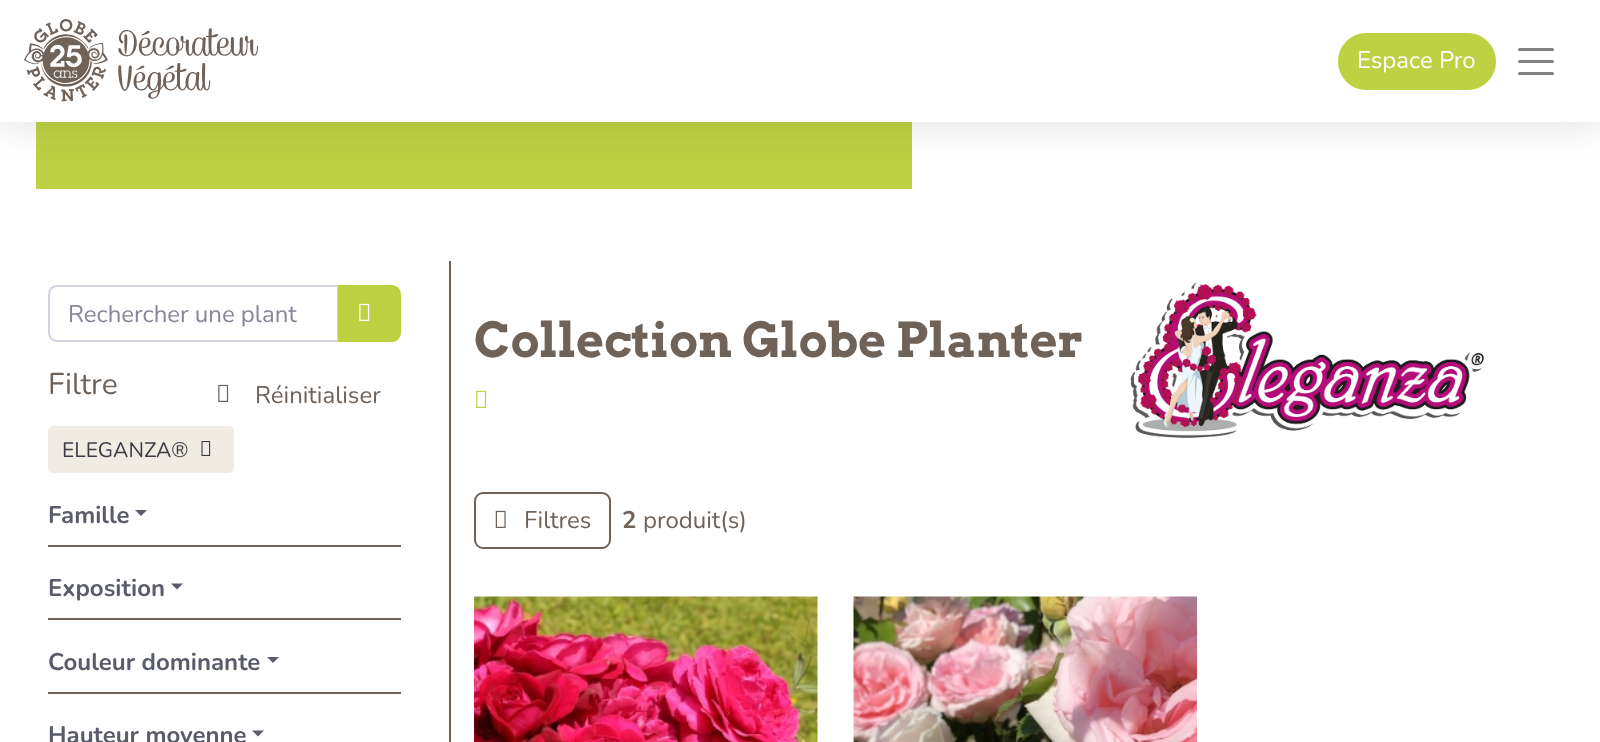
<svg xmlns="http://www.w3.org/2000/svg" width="1600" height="742">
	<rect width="100%" height="100%" fill="#FFFFFF" />
	<rect x="36" y="122" width="876" height="67" fill="#BDD142" />
	<rect x="0" y="3" width="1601" height="122" fill="#3A3B45" fill-opacity="0.15" filter="blur(21px)" />
	<rect x="0" y="0" width="1600" height="122" fill="#FFFFFF" />
	<image x="24" y="19" width="234" height="83" href="assets/img1.png" />
	<rect x="1339" y="34" width="156" height="55" rx="27.5" fill="#BDD142" stroke="#BDD142" stroke-width="2" />
	<text x="1357" y="68" font-family="Nunito" font-size="24" fill="#FFFFFF">Espace Pro</text>
	<path d="M1519.5 49.5H1552.5M1519.5 61.5H1552.5M1519.5 73.5H1552.5" fill="none" stroke="#808080" stroke-width="3" stroke-linecap="round" />
	<rect x="449" y="261" width="2" height="481" fill="#6E6259" />
	<path d="M57 286H338V341H57C52.5 341 49 337.5 49 333V294C49 289.5 52.5 286 57 286Z" fill="none" stroke="#D1D3E2" stroke-width="2" />
	<text x="68" y="322" font-family="Nunito" font-size="24" fill="#858796">Rechercher une plant</text>
	<path d="M339 286H392C396.5 286 400 289.5 400 294V333C400 337.5 396.5 341 392 341H339Z" fill="#BDD142" stroke="#BDD142" stroke-width="2" />
	<image x="359" y="303" width="11" height="18" href="assets/img2.png" />
	<text x="48" y="394" font-family="Nunito" font-size="30" fill="#6E6259">Filtre</text>
	<image x="218" y="384" width="11" height="18" href="assets/img3.png" />
	<text x="255" y="403" font-family="Nunito" font-size="24" fill="#6E6259">Réinitialiser</text>
	<rect x="49" y="427" width="184" height="45" rx="4" fill="#F0ECE3" stroke="#F0ECE3" stroke-width="2" />
	<text x="62" y="457" font-family="Nunito" font-size="21" fill="#3A3B45">ELEGANZA®</text>
	<image x="201" y="441" width="10" height="15" href="assets/img4.png" />
	<rect x="48" y="545" width="353" height="2" fill="#6E6259" />
	<text x="48" y="523" font-family="Nunito" font-size="24" font-weight="700" fill="#5A5C69">Famille</text>
	<path d="M135 510H147L141 516Z" fill="#5A5C69" />
	<rect x="48" y="618" width="353" height="2" fill="#6E6259" />
	<text x="48" y="596" font-family="Nunito" font-size="24" font-weight="700" fill="#5A5C69">Exposition</text>
	<path d="M171 583.5H183L177 589.5Z" fill="#5A5C69" />
	<rect x="48" y="692" width="353" height="2" fill="#6E6259" />
	<text x="48" y="670" font-family="Nunito" font-size="24" font-weight="700" fill="#5A5C69">Couleur dominante</text>
	<path d="M267 657H279L273 663Z" fill="#5A5C69" />
	<text x="48" y="743" font-family="Nunito" font-size="24" font-weight="700" fill="#5A5C69">Hauteur moyenne</text>
	<path d="M252 730.5H264L258 736.5Z" fill="#5A5C69" />
	<text x="474" y="357" font-family="Arvo" font-size="48" font-weight="700" fill="#6E6259">Collection Globe Planter</text>
	<image x="476" y="390" width="11" height="18" href="assets/img5.png" />
	<image x="1130" y="282" width="354" height="156" href="assets/img6.png" />
	<rect x="475" y="493" width="135" height="55" rx="8" fill="none" stroke="#6E6259" stroke-width="2" />
	<image x="495" y="510" width="11" height="18" href="assets/img7.png" />
	<text x="524" y="528" font-family="Nunito" font-size="24" fill="#6E6259">Filtres</text>
	<text x="622" y="528" font-family="Nunito" font-size="24" font-weight="700" fill="#6E6259">2</text>
	<text x="643" y="528" font-family="Nunito" font-size="24" fill="#6E6259">produit(s)</text>
	<image x="474" y="596" width="344" height="146" href="assets/img8.png" />
	<image x="853" y="596" width="344" height="146" href="assets/img9.png" />
</svg>
